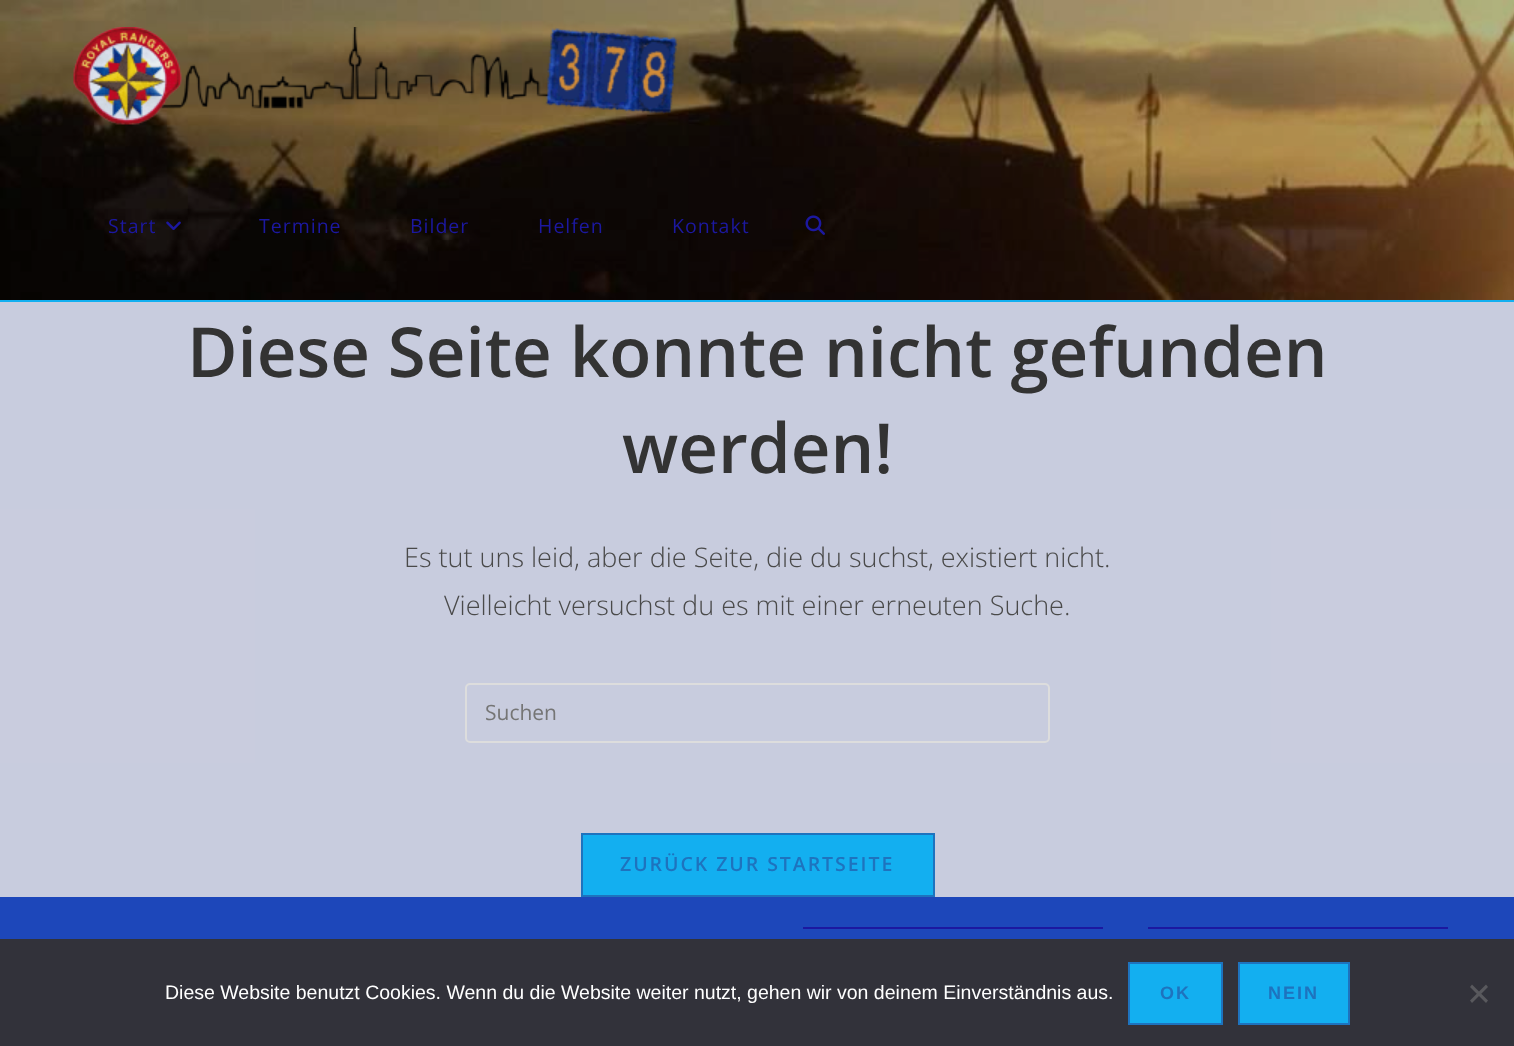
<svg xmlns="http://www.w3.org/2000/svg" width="1514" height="1046">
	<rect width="100%" height="100%" fill="#E9E9E9" />
	<rect x="0" y="302" width="1514" height="595" fill="#011D9B" fill-opacity="0.14" />
	<image x="0" y="0" width="1514" height="300" href="assets/img1.png" />
	<rect x="0" y="300" width="1514" height="2" fill="#13AFF0" />
	<image x="73" y="27" width="605" height="98" href="assets/img2.png" />
	<text x="108" y="233" font-family="Open Sans" font-size="19.5" letter-spacing="1" fill="#1C18A0">Start</text>
	<image x="166" y="221" width="15" height="9" href="assets/img3.png" />
	<g font-family="Open Sans" font-size="19.5" letter-spacing="1" fill="#1C18A0">
		<text x="259" y="233">Termine</text>
		<text x="410" y="233">Bilder</text>
		<text x="538" y="233">Helfen</text>
		<text x="672" y="233">Kontakt</text>
	</g>
	<image x="805" y="215" width="20" height="20" href="assets/img4.png" />
	<g font-family="Open Sans" font-size="69" font-weight="600" fill="#333333">
		<text x="187" y="377">Diese Seite konnte nicht gefunden</text>
		<text x="622" y="473">werden!</text>
	</g>
	<g font-family="Open Sans" font-size="27" font-weight="300" fill="#4A4A4A">
		<text x="404" y="567">Es tut uns leid, aber die Seite, die du suchst, existiert nicht.</text>
		<text x="444" y="615">Vielleicht versuchst du es mit einer erneuten Suche.</text>
	</g>
	<rect x="466" y="684" width="583" height="58" rx="4" fill="none" stroke="#DDDDDD" stroke-width="2" />
	<text x="485" y="720" font-family="Open Sans" font-size="21" fill="#757575">Suchen</text>
	<rect x="582" y="834" width="352" height="62" fill="#13AFF0" stroke="#1E73BE" stroke-width="2" />
	<text x="620" y="871" font-family="Open Sans" font-size="19.5" font-weight="600" letter-spacing="1.95" fill="#1E73BE">ZURÜCK ZUR STARTSEITE</text>
	<rect x="0" y="897" width="1514" height="42" fill="#1D47BA" />
	<rect x="803" y="927" width="300" height="2" fill="#1C18A0" />
	<rect x="1148" y="927" width="300" height="2" fill="#1C18A0" />
	<rect x="0" y="939" width="1514" height="107" fill="#32323A" />
	<text x="165" y="999" font-family="Liberation Sans" font-size="19.5" fill="#FFFFFF">Diese Website benutzt Cookies. Wenn du die Website weiter nutzt, gehen wir von deinem Einverständnis aus.</text>
	<rect x="1129" y="963" width="93" height="61" fill="#13AFF0" stroke="#1E73BE" stroke-width="2" />
	<text x="1160" y="999" font-family="Liberation Sans" font-size="18" font-weight="700" letter-spacing="2" fill="#1E73BE">OK</text>
	<rect x="1239" y="963" width="110" height="61" fill="#13AFF0" stroke="#1E73BE" stroke-width="2" />
	<text x="1268" y="999" font-family="Liberation Sans" font-size="18" font-weight="700" letter-spacing="2" fill="#1E73BE">NEIN</text>
	<path d="M1486 984.5L1488 987L1472 1003L1470 1000.5Z" fill="#59595D" />
	<path d="M1470 987L1472 984.5L1488 1000.5L1486 1003Z" fill="#59595D" />
</svg>
